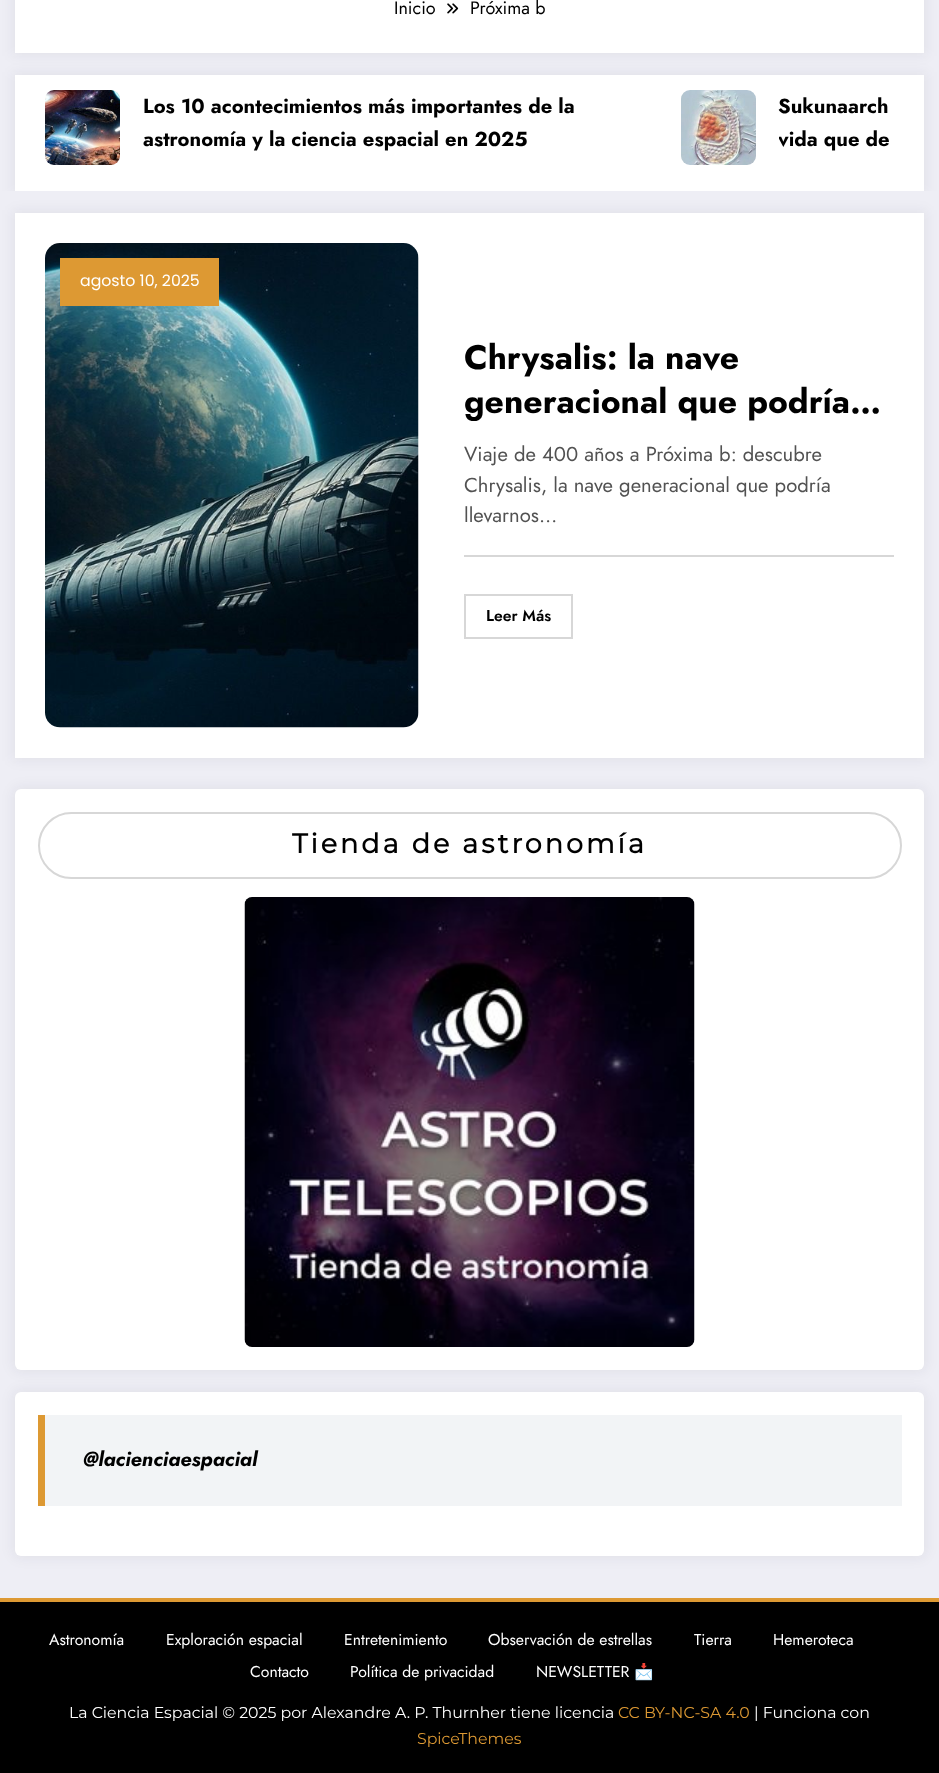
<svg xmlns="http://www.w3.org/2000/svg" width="939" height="1773">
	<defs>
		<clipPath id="clip1"><rect x="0" y="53" width="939" height="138" /></clipPath>
		<clipPath id="clip2"><rect x="779" y="92" width="115" height="64" /></clipPath>
	</defs>
	<rect width="100%" height="100%" fill="#EEEEF5" />
	<rect x="12" y="-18" width="915" height="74" fill="#171723" fill-opacity="0.05" filter="blur(6px)" />
	<rect x="15" y="0" width="909" height="53" fill="#FFFFFF" />
	<text x="394" y="14" font-family="Jost" font-size="18" fill="#000000">Inicio</text>
	<image x="447" y="3" width="12" height="11" href="assets/img1.png" />
	<text x="470" y="14" font-family="Jost" font-size="18" fill="#000000">Próxima b</text>
	<g clip-path="url(#clip1)">
		<rect x="12" y="72" width="915" height="122" fill="#171723" fill-opacity="0.05" filter="blur(6px)" />
	</g>
	<rect x="15" y="75" width="909" height="116" fill="#FFFFFF" />
	<image x="45" y="90" width="75" height="75" href="assets/img2.png" />
	<g font-family="Jost" font-size="20.25" font-weight="700" fill="#000000">
		<text x="143" y="113">Los 10 acontecimientos más importantes de la</text>
		<text x="143" y="146">astronomía y la ciencia espacial en 2025</text>
	</g>
	<image x="681" y="90" width="75" height="75" href="assets/img3.png" />
	<text x="778" y="113" font-family="Jost" font-size="20.25" font-weight="700" fill="#000000">Sukunaarch</text>
	<g clip-path="url(#clip2)">
		<text x="778" y="146" font-family="Jost" font-size="20.25" font-weight="700" fill="#000000">vida que de</text>
	</g>
	<rect x="12" y="210" width="915" height="551" fill="#171723" fill-opacity="0.05" filter="blur(6px)" />
	<rect x="15" y="213" width="909" height="545" fill="#FFFFFF" />
	<image x="45" y="243" width="374" height="485" href="assets/img4.png" />
	<rect x="60" y="258" width="159" height="48" fill="#DD9933" />
	<text x="80" y="286" font-family="Poppins" font-size="15.75" fill="#FFFFFF">agosto 10, 2025</text>
	<g font-family="Jost" font-size="33.75" font-weight="700" fill="#000000">
		<text x="464" y="369">Chrysalis: la nave</text>
		<text x="464" y="413">generacional que podría…</text>
	</g>
	<rect x="464" y="555" width="430" height="2" fill="#D7D7D7" />
	<g font-family="Jost" font-size="20.25" fill="#525252">
		<text x="464" y="461">Viaje de 400 años a Próxima b: descubre</text>
		<text x="464" y="492">Chrysalis, la nave generacional que podría</text>
		<text x="464" y="522">llevarnos…</text>
	</g>
	<rect x="465" y="595" width="107" height="43" fill="none" stroke="#D7D7D7" stroke-width="2" />
	<text x="486" y="621" font-family="Jost" font-size="15.75" font-weight="600" fill="#000000">Leer Más</text>
	<rect x="12" y="786" width="915" height="587" rx="9" fill="#171723" fill-opacity="0.05" filter="blur(6px)" />
	<rect x="15" y="789" width="909" height="581" rx="6" fill="#FFFFFF" />
	<rect x="39" y="813" width="862" height="65" rx="32.5" fill="none" stroke="#D7D7D7" stroke-width="2" />
	<text x="292" y="853" font-family="Montserrat" font-size="27" font-weight="700" letter-spacing="3" fill="#000000">Tienda de astronomía</text>
	<image x="244" y="897" width="451" height="450" href="assets/img5.png" />
	<rect x="12" y="1389" width="915" height="170" rx="9" fill="#171723" fill-opacity="0.05" filter="blur(6px)" />
	<rect x="15" y="1392" width="909" height="164" rx="6" fill="#FFFFFF" />
	<rect x="45" y="1415" width="857" height="91" fill="#F2F4F6" />
	<rect x="38" y="1415" width="7" height="91" fill="#DD9933" />
	<text x="83" y="1466" font-family="Jost" font-size="20.25" font-weight="700" font-style="italic" fill="#000000">@lacienciaespacial</text>
	<rect x="0" y="1598" width="939" height="4" fill="#DD9933" />
	<rect x="0" y="1602" width="939" height="171" fill="#000000" />
	<g font-family="Jost" font-size="15.75" fill="#FFFFFF">
		<text x="49" y="1645">Astronomía</text>
		<text x="166" y="1645">Exploración espacial</text>
		<text x="344" y="1645">Entretenimiento</text>
		<text x="488" y="1645">Observación de estrellas</text>
		<text x="694" y="1645">Tierra</text>
		<text x="773" y="1645">Hemeroteca</text>
		<text x="250" y="1677">Contacto</text>
		<text x="350" y="1677">Política de privacidad</text>
		<text x="536" y="1677">NEWSLETTER</text>
	</g>
	<text x="634" y="1677" font-family="Noto Color Emoji" font-size="15.75" fill="#FFFFFF">📩</text>
	<text x="69" y="1718" font-family="Montserrat" font-size="15.75" font-weight="100" fill="#FFFFFF">La Ciencia Espacial © 2025 por Alexandre A. P. Thurnher tiene licencia</text>
	<text x="618" y="1718" font-family="Montserrat" font-size="15.75" font-weight="100" fill="#DD9933">CC BY-NC-SA 4.0</text>
	<text x="754" y="1718" font-family="Montserrat" font-size="15.75" font-weight="100" fill="#FFFFFF">| Funciona con</text>
	<text x="417" y="1744" font-family="Montserrat" font-size="15.75" font-weight="100" fill="#DD9933">SpiceThemes</text>
</svg>
